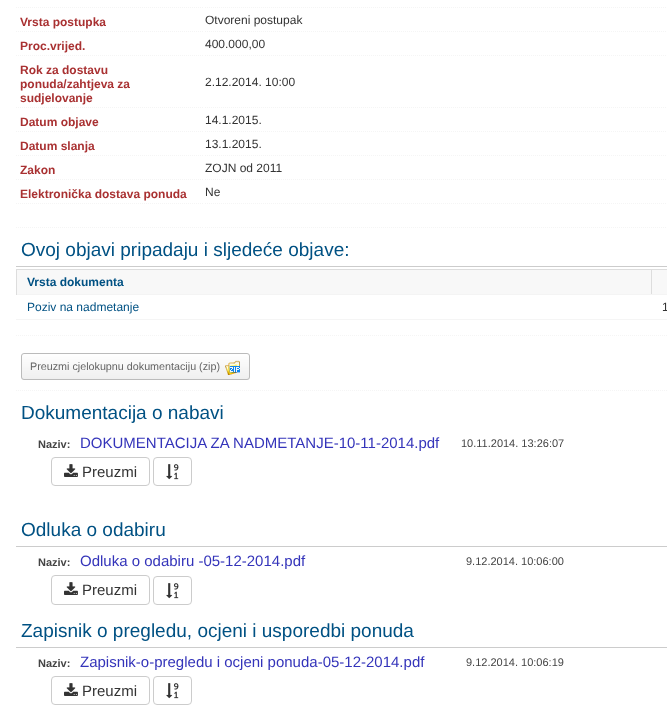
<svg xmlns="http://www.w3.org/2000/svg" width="667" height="717">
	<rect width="100%" height="100%" fill="#FFFFFF" />
	<path d="M16 7.5H204" fill="none" stroke="#F5F5F5" stroke-dasharray="1 1" />
	<path d="M205 7.5H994" fill="none" stroke="#F5F5F5" stroke-dasharray="1 1" />
	<path d="M16 31.5H204" fill="none" stroke="#F5F5F5" stroke-dasharray="1 1" />
	<text x="20" y="26" font-family="Liberation Sans" font-size="12" font-weight="700" fill="#A93132">Vrsta postupka</text>
	<path d="M205 31.5H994" fill="none" stroke="#F5F5F5" stroke-dasharray="1 1" />
	<text x="205" y="24" font-family="Liberation Sans" font-size="12" fill="#333333">Otvoreni postupak</text>
	<path d="M16 55.5H204" fill="none" stroke="#F5F5F5" stroke-dasharray="1 1" />
	<text x="20" y="50" font-family="Liberation Sans" font-size="12" font-weight="700" fill="#A93132">Proc.vrijed.</text>
	<path d="M205 55.5H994" fill="none" stroke="#F5F5F5" stroke-dasharray="1 1" />
	<text x="205" y="48" font-family="Liberation Sans" font-size="12" fill="#333333">400.000,00</text>
	<path d="M16 107.5H204" fill="none" stroke="#F5F5F5" stroke-dasharray="1 1" />
	<g font-family="Liberation Sans" font-size="12" font-weight="700" fill="#A93132">
		<text x="20" y="74">Rok za dostavu</text>
		<text x="20" y="88">ponuda/zahtjeva za</text>
		<text x="20" y="102">sudjelovanje</text>
	</g>
	<path d="M205 107.5H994" fill="none" stroke="#F5F5F5" stroke-dasharray="1 1" />
	<text x="205" y="86" font-family="Liberation Sans" font-size="12" fill="#333333">2.12.2014. 10:00</text>
	<path d="M16 131.5H204" fill="none" stroke="#F5F5F5" stroke-dasharray="1 1" />
	<text x="20" y="126" font-family="Liberation Sans" font-size="12" font-weight="700" fill="#A93132">Datum objave</text>
	<path d="M205 131.5H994" fill="none" stroke="#F5F5F5" stroke-dasharray="1 1" />
	<text x="205" y="124" font-family="Liberation Sans" font-size="12" fill="#333333">14.1.2015.</text>
	<path d="M16 155.5H204" fill="none" stroke="#F5F5F5" stroke-dasharray="1 1" />
	<text x="20" y="150" font-family="Liberation Sans" font-size="12" font-weight="700" fill="#A93132">Datum slanja</text>
	<path d="M205 155.5H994" fill="none" stroke="#F5F5F5" stroke-dasharray="1 1" />
	<text x="205" y="148" font-family="Liberation Sans" font-size="12" fill="#333333">13.1.2015.</text>
	<path d="M16 179.5H204" fill="none" stroke="#F5F5F5" stroke-dasharray="1 1" />
	<text x="20" y="174" font-family="Liberation Sans" font-size="12" font-weight="700" fill="#A93132">Zakon</text>
	<path d="M205 179.5H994" fill="none" stroke="#F5F5F5" stroke-dasharray="1 1" />
	<text x="205" y="172" font-family="Liberation Sans" font-size="12" fill="#333333">ZOJN od 2011</text>
	<path d="M16 203.5H204" fill="none" stroke="#F5F5F5" stroke-dasharray="1 1" />
	<text x="20" y="198" font-family="Liberation Sans" font-size="12" font-weight="700" fill="#A93132">Elektronička dostava ponuda</text>
	<path d="M205 203.5H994" fill="none" stroke="#F5F5F5" stroke-dasharray="1 1" />
	<text x="205" y="196" font-family="Liberation Sans" font-size="12" fill="#333333">Ne</text>
	<path d="M16 227.5H204" fill="none" stroke="#F5F5F5" stroke-dasharray="1 1" />
	<path d="M205 227.5H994" fill="none" stroke="#F5F5F5" stroke-dasharray="1 1" />
	<path d="M16 335.5H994" fill="none" stroke="#F5F5F5" stroke-dasharray="1 1" />
	<rect x="16" y="266" width="651" height="1" fill="#CCCCCC" />
	<text x="21" y="256" font-family="Liberation Sans" font-size="19" fill="#005183">Ovoj objavi pripadaju i sljedeće objave:</text>
	<rect x="17" y="270" width="650" height="24" fill="#F8F8F8" />
	<rect x="651" y="269" width="16" height="1" fill="#DDDDDD" />
	<rect x="651" y="294" width="16" height="1" fill="#F4F4F4" />
	<rect x="651" y="269" width="1" height="26" fill="#DDDDDD" />
	<rect x="16" y="269" width="636" height="1" fill="#DDDDDD" />
	<rect x="16" y="294" width="636" height="1" fill="#F4F4F4" />
	<rect x="16" y="269" width="1" height="26" fill="#DDDDDD" />
	<text x="27" y="286" font-family="Liberation Sans" font-size="12" font-weight="700" fill="#005183">Vrsta dokumenta</text>
	<text x="27" y="311" font-family="Liberation Sans" font-size="12" fill="#005183">Poziv na nadmetanje</text>
	<rect x="16" y="319" width="651" height="1" fill="#F5F5F5" />
	<text x="662" y="311" font-family="Liberation Sans" font-size="12" fill="#333333">1</text>
	<path d="M16 390.5H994" fill="none" stroke="#F5F5F5" stroke-dasharray="1 1" />
	<image x="21" y="354" width="229" height="26" href="assets/img1.png" />
	<rect x="21.5" y="353.5" width="228" height="26" rx="2.5" fill="none" stroke="#BBBBBB" />
	<image x="225" y="360" width="15" height="15" href="assets/img2.png" />
	<text x="30" y="370" font-family="Liberation Sans" font-size="10.75" fill="#666666">Preuzmi cjelokupnu dokumentaciju (zip)</text>
	<text x="21" y="419" font-family="Liberation Sans" font-size="19" fill="#005183">Dokumentacija o nabavi</text>
	<text x="38" y="448" font-family="Liberation Sans" font-size="11" font-weight="700" fill="#444444">Naziv:</text>
	<text x="80" y="448" font-family="Liberation Sans" font-size="15" fill="#3434BA">DOKUMENTACIJA ZA NADMETANJE-10-11-2014.pdf</text>
	<text x="461" y="447" font-family="Liberation Sans" font-size="11" fill="#444444">10.11.2014. 13:26:07</text>
	<rect x="51.5" y="457.5" width="98" height="28" rx="3.5" fill="none" stroke="#CCCCCC" />
	<image x="64" y="464" width="14" height="13" href="assets/img3.png" />
	<text x="82" y="477" font-family="Liberation Sans" font-size="15" fill="#333333">Preuzmi</text>
	<rect x="153.5" y="457.5" width="38" height="28" rx="3.5" fill="none" stroke="#CCCCCC" />
	<image x="166" y="464" width="13" height="16" href="assets/img4.png" />
	<rect x="16" y="546" width="651" height="1" fill="#CCCCCC" />
	<text x="21" y="536" font-family="Liberation Sans" font-size="19" fill="#005183">Odluka o odabiru</text>
	<text x="38" y="566" font-family="Liberation Sans" font-size="11" font-weight="700" fill="#444444">Naziv:</text>
	<text x="80" y="566" font-family="Liberation Sans" font-size="15" fill="#3434BA">Odluka o odabiru -05-12-2014.pdf</text>
	<text x="466" y="565" font-family="Liberation Sans" font-size="11" fill="#444444">9.12.2014. 10:06:00</text>
	<rect x="51.5" y="575.5" width="98" height="29" rx="3.5" fill="none" stroke="#CCCCCC" />
	<image x="64" y="582" width="14" height="13" href="assets/img3.png" />
	<text x="82" y="595" font-family="Liberation Sans" font-size="15" fill="#333333">Preuzmi</text>
	<rect x="153.5" y="576.5" width="38" height="28" rx="3.5" fill="none" stroke="#CCCCCC" />
	<image x="166" y="583" width="13" height="16" href="assets/img4.png" />
	<rect x="16" y="647" width="651" height="1" fill="#CCCCCC" />
	<text x="21" y="637" font-family="Liberation Sans" font-size="19" fill="#005183">Zapisnik o pregledu, ocjeni i usporedbi ponuda</text>
	<text x="38" y="667" font-family="Liberation Sans" font-size="11" font-weight="700" fill="#444444">Naziv:</text>
	<text x="80" y="667" font-family="Liberation Sans" font-size="15" fill="#3434BA">Zapisnik-o-pregledu i ocjeni ponuda-05-12-2014.pdf</text>
	<text x="466" y="666" font-family="Liberation Sans" font-size="11" fill="#444444">9.12.2014. 10:06:19</text>
	<rect x="51.5" y="676.5" width="98" height="28" rx="3.5" fill="none" stroke="#CCCCCC" />
	<image x="64" y="683" width="14" height="13" href="assets/img3.png" />
	<text x="82" y="696" font-family="Liberation Sans" font-size="15" fill="#333333">Preuzmi</text>
	<rect x="153.5" y="676.5" width="38" height="28" rx="3.5" fill="none" stroke="#CCCCCC" />
	<image x="166" y="683" width="13" height="16" href="assets/img4.png" />
</svg>
